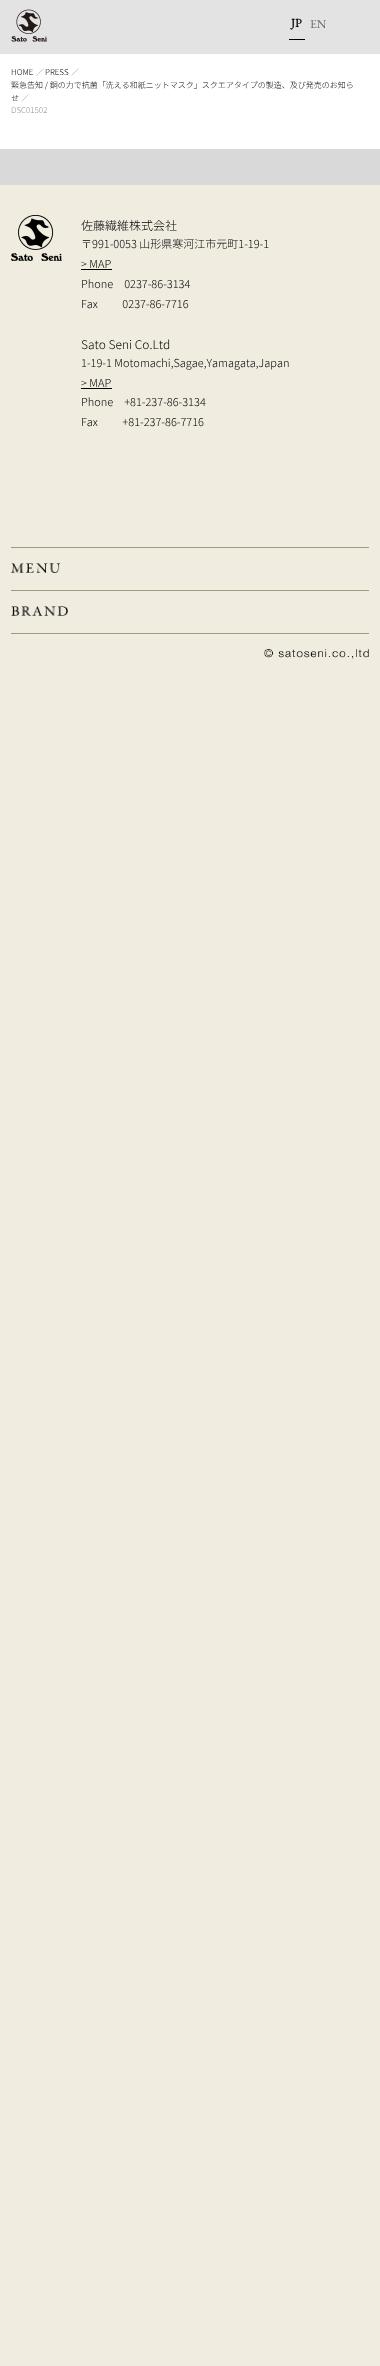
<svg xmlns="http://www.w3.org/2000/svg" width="380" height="2366">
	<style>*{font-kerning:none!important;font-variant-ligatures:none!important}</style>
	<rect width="100%" height="100%" fill="#F0ECE0" />
	<rect x="0" y="0" width="380" height="54" fill="#E3E3E3" />
	<image x="11" y="9" width="36" height="33" href="assets/img1.png" />
	<rect x="289" y="39" width="16" height="1" fill="#000000" />
	<text x="291" y="27" font-family="EB Garamond" font-size="12" font-weight="700" fill="#000000">JP</text>
	<text x="310" y="28" font-family="EB Garamond" font-size="12" fill="#666666">EN</text>
	<rect x="0" y="54" width="380" height="95" fill="#FFFFFF" />
	<text x="11" y="75" font-family="Noto Sans JP" font-size="8" font-weight="300" fill="#000000">HOME</text>
	<text x="36" y="75" font-family="Noto Sans JP" font-size="8" font-weight="300" fill="#939393">／</text>
	<text x="45" y="75" font-family="Noto Sans JP" font-size="8" font-weight="300" fill="#000000">PRESS</text>
	<text x="71" y="75" font-family="Noto Sans JP" font-size="8" font-weight="300" fill="#939393">／</text>
	<g font-family="Noto Sans JP" font-size="8" font-weight="300" fill="#000000">
		<text x="11" y="88">緊急告知 / 銅の力で抗菌「洗える和紙ニットマスク」スクエアタイプの製造、及び発売のお知ら</text>
		<text x="11" y="101">せ</text>
	</g>
	<g font-family="Noto Sans JP" font-size="8" font-weight="300" fill="#939393">
		<text x="21" y="101">／</text>
		<text x="11" y="113">DSC01502</text>
	</g>
	<rect x="0" y="149" width="380" height="36" fill="#D9D9D9" />
	<image x="11" y="215" width="51" height="46" href="assets/img2.png" />
	<text x="81" y="230" font-family="Noto Sans JP" font-size="12" font-weight="300" fill="#000000">佐藤繊維株式会社</text>
	<g font-family="Noto Sans JP" font-size="11" font-weight="300" fill="#000000">
		<text x="81" y="248">〒991-0053 山形県寒河江市元町1-19-1</text>
		<text x="81" y="268">&gt; MAP</text>
	</g>
	<rect x="81" y="269" width="31" height="1" fill="#000000" />
	<g font-family="Noto Sans JP" font-size="11" font-weight="300" fill="#000000">
		<text x="81" y="288">Phone　0237-86-3134</text>
		<text x="81" y="308">Fax　　 0237-86-7716</text>
	</g>
	<text x="81" y="349" font-family="Noto Sans JP" font-size="12" font-weight="300" fill="#000000">Sato Seni Co.Ltd</text>
	<g font-family="Noto Sans JP" font-size="11" font-weight="300" fill="#000000">
		<text x="81" y="367">1-19-1 Motomachi,Sagae,Yamagata,Japan</text>
		<text x="81" y="387">&gt; MAP</text>
	</g>
	<rect x="81" y="388" width="31" height="1" fill="#000000" />
	<g font-family="Noto Sans JP" font-size="11" font-weight="300" fill="#000000">
		<text x="81" y="406">Phone　+81-237-86-3134</text>
		<text x="81" y="426">Fax　　 +81-237-86-7716</text>
	</g>
	<rect x="11" y="547" width="358" height="1" fill="#A0987F" />
	<rect x="11" y="590" width="358" height="1" fill="#A0987F" />
	<image x="11" y="563" width="49" height="10" href="assets/img3.png" />
	<rect x="11" y="633" width="358" height="1" fill="#A0987F" />
	<image x="11" y="606" width="57" height="10" href="assets/img4.png" />
	<image x="264" y="649" width="105" height="10" href="assets/img5.png" />
</svg>
